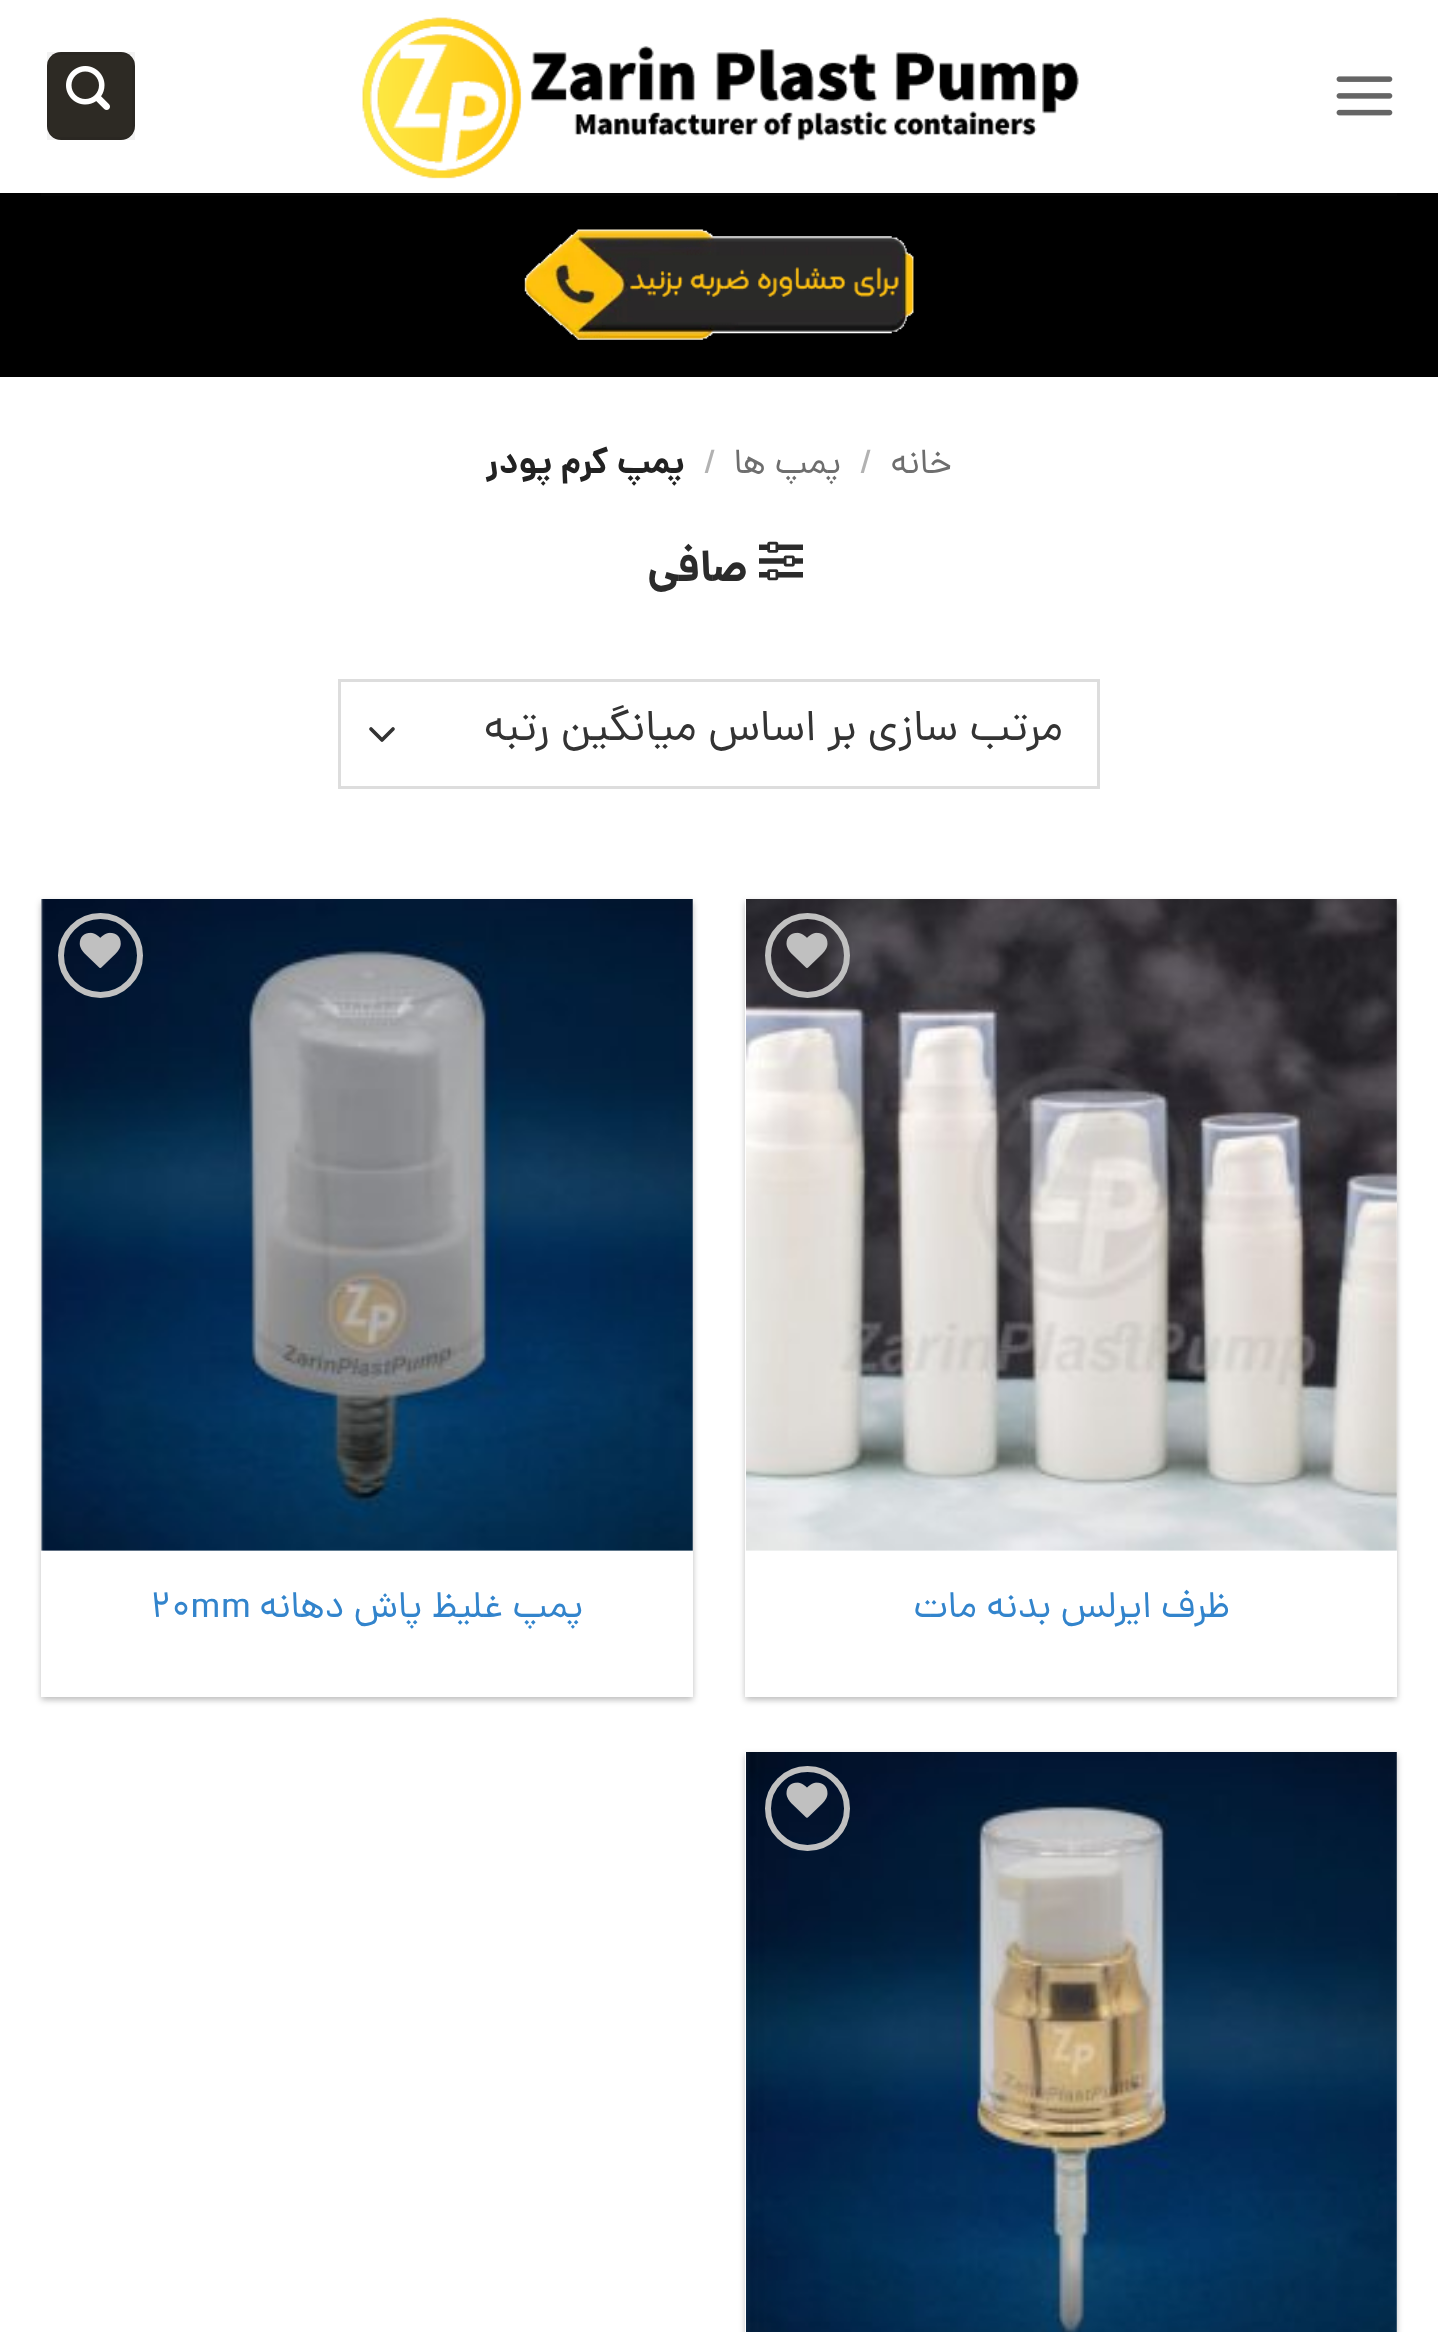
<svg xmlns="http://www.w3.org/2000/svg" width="1438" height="2332">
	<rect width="100%" height="100%" fill="#FFFFFF" />
	<image x="1336" y="76" width="57" height="40" href="assets/img1.png" />
	<image x="362" y="17" width="717" height="162" href="assets/img2.png" />
	<rect x="47" y="52" width="88" height="88" rx="14" fill="#2D2A24" />
	<rect x="48.5" y="53.5" width="85" height="85" fill="none" stroke="#000000" stroke-opacity="0.05" stroke-width="3" />
	<image x="66" y="66" width="44" height="44" href="assets/img3.png" />
	<rect x="0" y="193" width="1438" height="184" fill="#000000" />
	<rect x="41" y="193" width="1356" height="3" fill="#040404" />
	<image x="524" y="229" width="390" height="111" href="assets/img4.png" />
	<text x="952" y="473" font-family="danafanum" font-size="35.25" direction="rtl" fill="#6E6E6E">خانه</text>
	<text x="860" y="473" font-family="danafanum" font-size="35.25" fill="#B2B2B2">/</text>
	<text x="841" y="473" font-family="danafanum" font-size="35.25" direction="rtl" fill="#6E6E6E">پمپ ها</text>
	<text x="704" y="473" font-family="danafanum" font-size="35.25" fill="#B2B2B2">/</text>
	<text x="685" y="473" font-family="danafanum" font-size="35.25" font-weight="700" direction="rtl" fill="#222222">پمپ کرم پودر</text>
	<image x="759" y="541" width="44" height="40" href="assets/img5.png" />
	<text x="748" y="581" font-family="danafanum" font-size="44" font-weight="700" direction="rtl" fill="#2B2B2B">صافی</text>
	<path d="M371 729L382 740L393 729" fill="none" stroke="#333333" stroke-width="3.7" stroke-linecap="round" stroke-linejoin="round" />
	<rect x="339.5" y="680.5" width="759" height="107" fill="none" stroke="#DDDDDD" stroke-width="3" />
	<text x="1063" y="740" font-family="danafanum" font-size="44" direction="rtl" fill="#333333">مرتب سازی بر اساس میانگین رتبه</text>
	<rect x="745" y="902" width="652" height="798" fill="#000000" fill-opacity="0.24" filter="blur(3px)" />
	<rect x="751" y="908" width="641" height="786" fill="#000000" fill-opacity="0.12" filter="blur(4px)" />
	<rect x="745" y="899" width="652" height="798" fill="#FFFFFF" />
	<image x="746" y="899" width="651" height="652" href="assets/img6.png" />
	<circle cx="807.5" cy="955.5" r="39.5" fill="none" stroke="#C0C0C0" stroke-width="6" />
	<image x="786" y="932" width="42" height="36" href="assets/img7.png" />
	<text x="1230" y="1617" font-family="danafanum" font-size="37.5" direction="rtl" fill="#3284CC">ظرف ایرلس بدنه مات</text>
	<rect x="41" y="902" width="652" height="798" fill="#000000" fill-opacity="0.24" filter="blur(3px)" />
	<rect x="47" y="908" width="641" height="786" fill="#000000" fill-opacity="0.12" filter="blur(4px)" />
	<rect x="41" y="899" width="652" height="798" fill="#FFFFFF" />
	<image x="41" y="899" width="652" height="652" href="assets/img8.png" />
	<circle cx="100.5" cy="955.5" r="39.5" fill="none" stroke="#C0C0C0" stroke-width="6" />
	<image x="79" y="932" width="42" height="36" href="assets/img9.png" />
	<text x="583" y="1617" font-family="danafanum" font-size="37.5" direction="rtl" fill="#3284CC">پمپ غلیظ پاش دهانه</text>
	<text x="150" y="1617" font-family="danafanum" font-size="37.5" fill="#3284CC">20mm</text>
	<rect x="745" y="1755" width="652" height="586" fill="#000000" fill-opacity="0.24" filter="blur(3px)" />
	<rect x="745" y="1752" width="652" height="580" fill="#FFFFFF" />
	<image x="746" y="1752" width="651" height="580" href="assets/img10.png" />
	<circle cx="807.5" cy="1808.5" r="39.5" fill="none" stroke="#C0C0C0" stroke-width="6" />
	<image x="786" y="1782" width="42" height="36" href="assets/img11.png" />
</svg>
